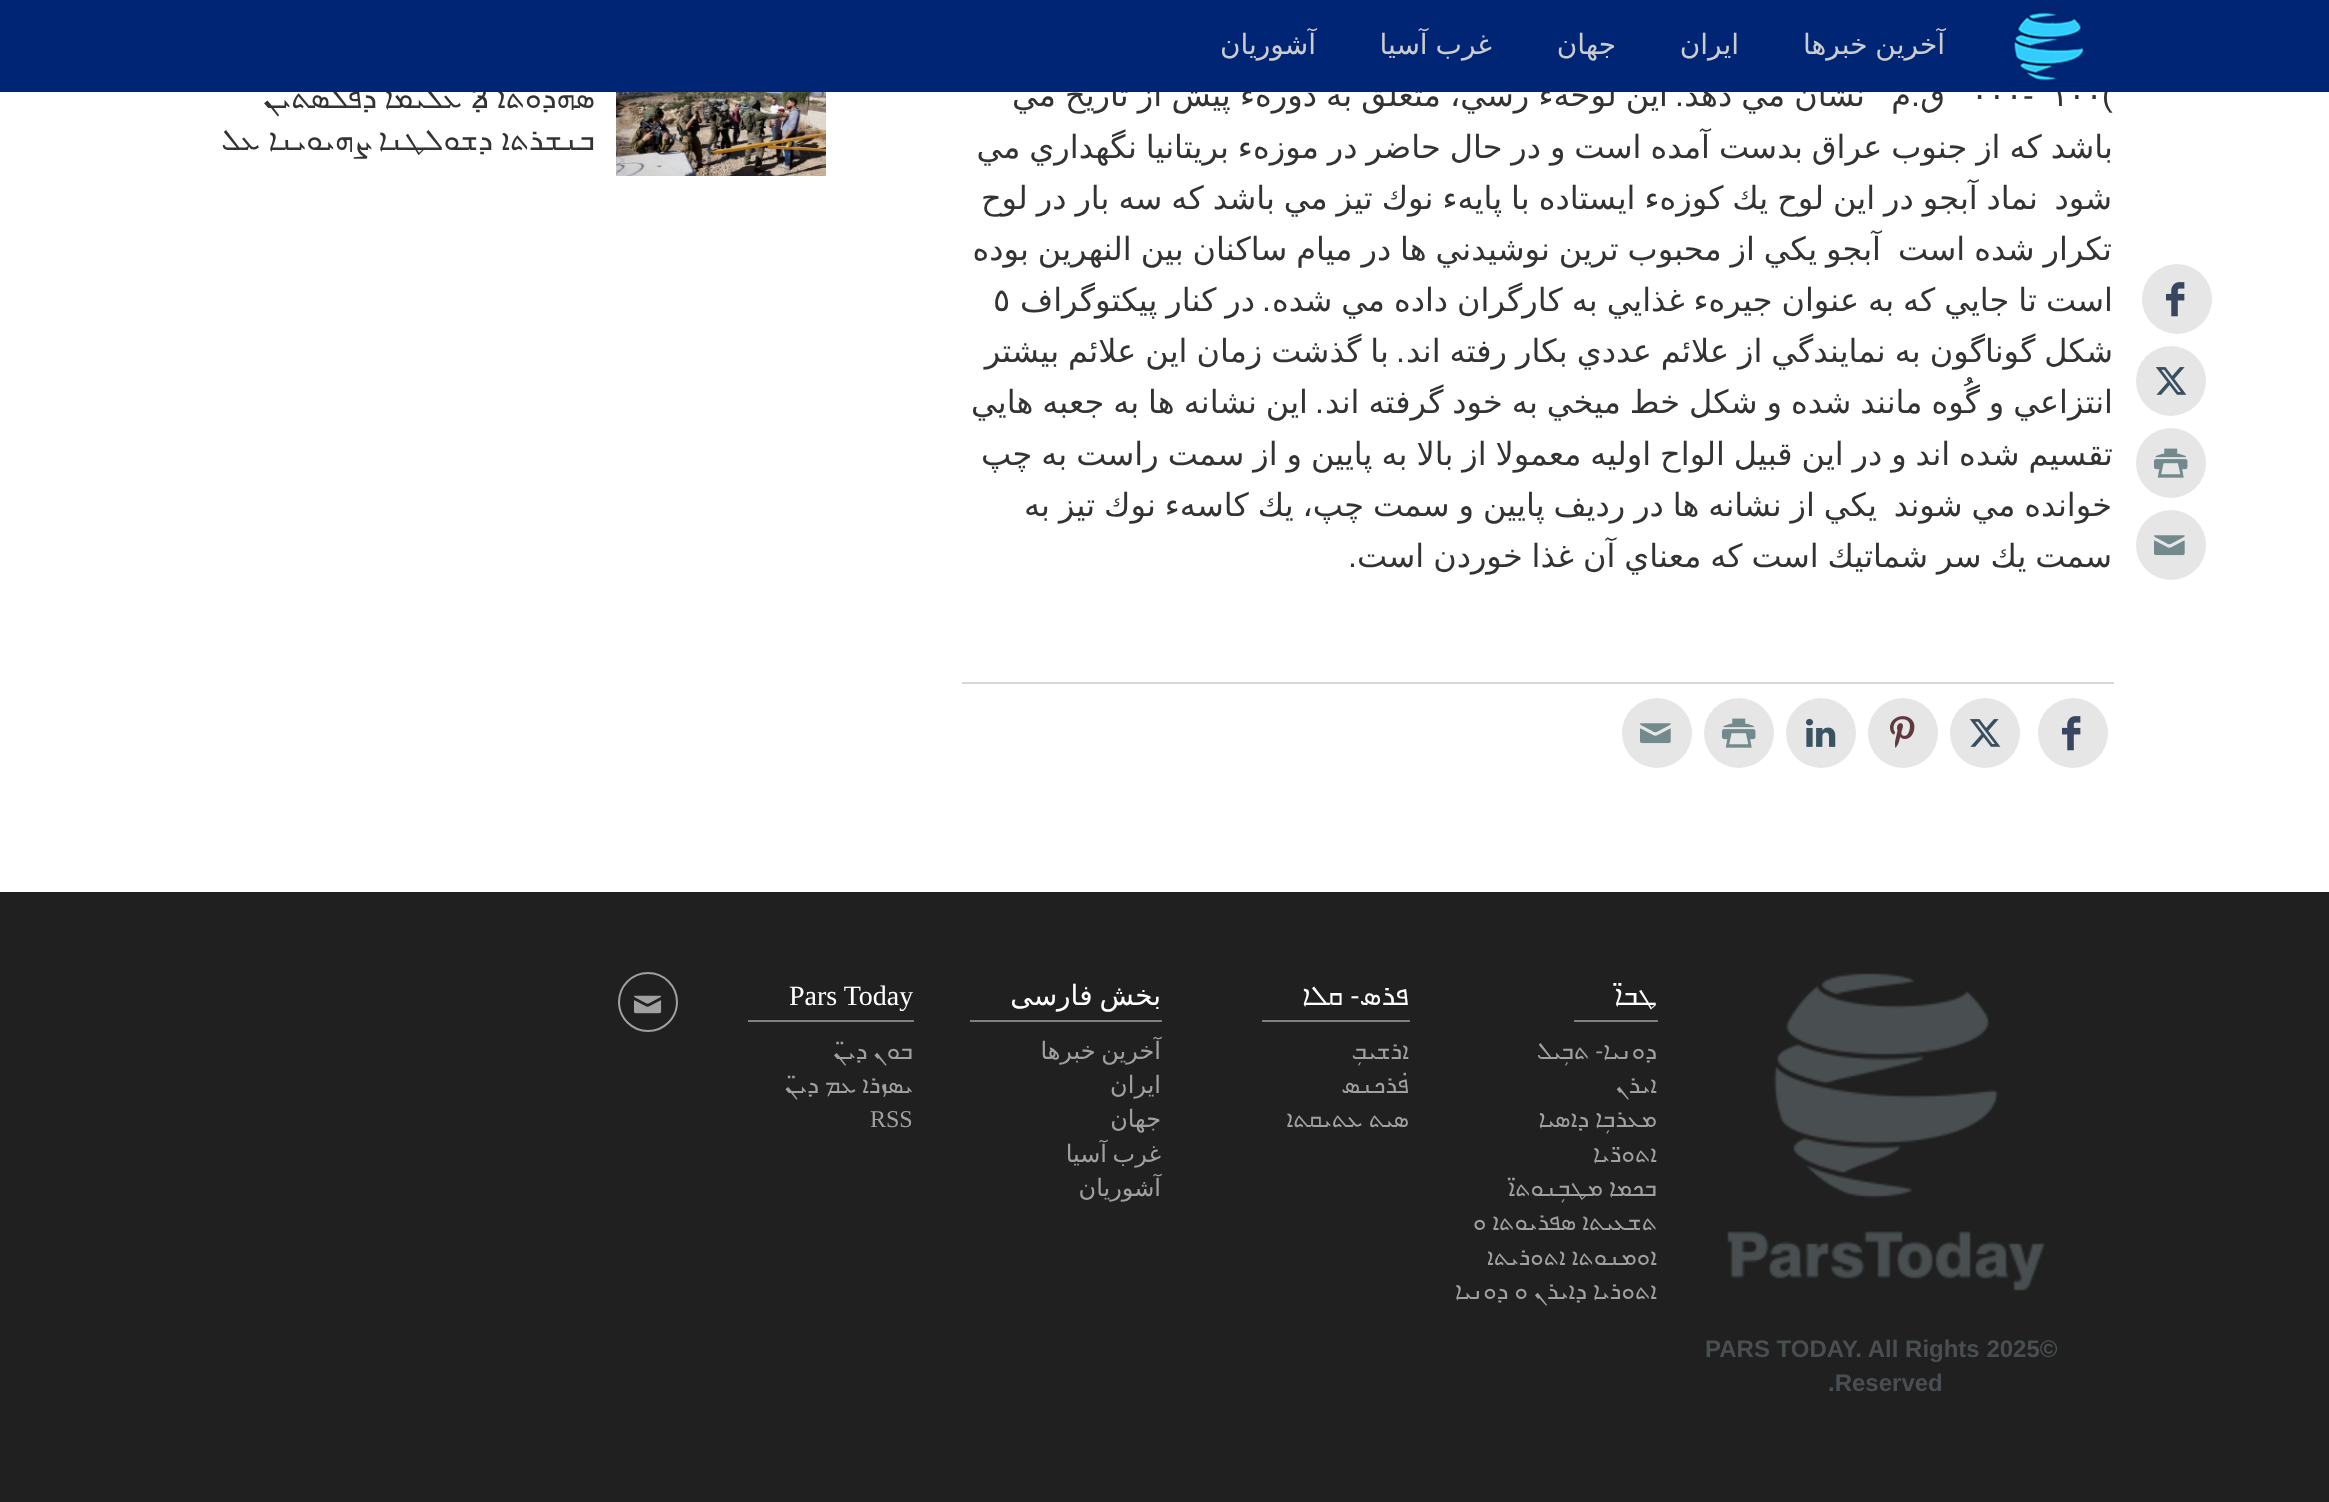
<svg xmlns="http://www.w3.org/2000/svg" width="2329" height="1502">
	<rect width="100%" height="100%" fill="#FFFFFF" />
	<text x="2102" y="106" font-family="Liberation Sans" font-size="32" fill="#333333">(</text>
	<text x="2051" y="106" font-family="DejaVu Sans" font-size="32" fill="#333333">١٠٠</text>
	<g font-family="DejaVu Sans" font-size="32" direction="rtl" fill="#333333">
		<text x="1945" y="106">ق</text>
		<text x="1865" y="106" word-spacing="-1">نشان مي دهد</text>
		<text x="1668" y="106" word-spacing="-1">اين لوحهء رسي، متعلق به دورهء پيش از تاريخ مي</text>
	</g>
	<text x="595" y="108" word-spacing="1" font-family="FreeSans" font-size="30" direction="rtl" fill="#333333">ܣܗܕܘܬܐ ܕ</text>
	<text x="471" y="108" font-family="Liberation Sans" font-size="30" fill="#333333">2</text>
	<text x="462" y="108" font-family="FreeSans" font-size="30" direction="rtl" fill="#333333">ܥܠܝܡܐ ܕܦܠܣܬܝܢ</text>
	<rect x="0" y="0" width="2329" height="92" fill="#002575" />
	<image x="2010" y="6" width="80" height="80" href="assets/img1.png" />
	<g font-family="DejaVu Sans" font-size="28" direction="rtl" fill="#CCCCCC">
		<text x="1945" y="54" word-spacing="-1">آخرین خبرها</text>
		<text x="1739" y="54">ایران</text>
		<text x="1616" y="54">جهان</text>
		<text x="1492" y="54" word-spacing="-1">غرب آسیا</text>
		<text x="1316" y="54">آشوریان</text>
	</g>
	<circle cx="2177" cy="299" r="35" fill="#E6E6E6" />
	<image x="2166" y="282" width="19" height="35" href="assets/img2.png" />
	<circle cx="2171" cy="381" r="35" fill="#E6E6E6" />
	<image x="2155" y="367" width="32" height="28" href="assets/img3.png" />
	<circle cx="2171" cy="463" r="35" fill="#E6E6E6" />
	<image x="2154" y="448" width="34" height="30" href="assets/img4.png" />
	<circle cx="2171" cy="545" r="35" fill="#E6E6E6" />
	<image x="2154" y="535" width="31" height="21" href="assets/img5.png" />
	<text x="2023" y="106" font-family="Liberation Sans" font-size="32" fill="#333333">-</text>
	<text x="1971" y="106" font-family="DejaVu Sans" font-size="32" fill="#333333">٠٠٠</text>
	<text x="1911" y="106" font-family="DejaVu Sans" font-size="32" direction="rtl" fill="#333333">م</text>
	<g font-family="Liberation Sans" font-size="32" direction="rtl" fill="#333333">
		<text x="1920" y="106">.</text>
		<text x="1684" y="106">.</text>
	</g>
	<g font-family="DejaVu Sans" font-size="32" direction="rtl" fill="#333333">
		<text x="2113" y="158" word-spacing="-1.25">باشد كه از جنوب عراق بدست آمده است و در حال حاضر در موزهء بريتانيا نگهداري مي</text>
		<text x="2112" y="209">شود</text>
		<text x="2038" y="209" word-spacing="-1.25">نماد آبجو در اين لوح يك كوزهء ايستاده با پايهء نوك تيز مي باشد كه سه بار در لوح</text>
		<text x="2112" y="260" word-spacing="-1.25">تكرار شده است</text>
		<text x="1881" y="260" word-spacing="-1.25">آبجو يكي از محبوب ترين نوشيدني ها در ميام ساكنان بين النهرين بوده</text>
		<text x="2113" y="311" word-spacing="-1.25">است تا جايي كه به عنوان جيرهء غذايي به كارگران داده مي شده</text>
	</g>
	<text x="1271" y="311" font-family="Liberation Sans" font-size="32" direction="rtl" fill="#333333">.</text>
	<text x="1255" y="311" word-spacing="-1.25" font-family="DejaVu Sans" font-size="32" direction="rtl" fill="#333333">در كنار پيكتوگراف</text>
	<text x="993" y="311" font-family="DejaVu Sans" font-size="32" fill="#333333">٥</text>
	<text x="2113" y="362" word-spacing="-1.25" font-family="DejaVu Sans" font-size="32" direction="rtl" fill="#333333">شكل گوناگون به نمايندگي از علائم عددي بكار رفته اند</text>
	<text x="1405" y="362" font-family="Liberation Sans" font-size="32" direction="rtl" fill="#333333">.</text>
	<g font-family="DejaVu Sans" font-size="32" direction="rtl" fill="#333333">
		<text x="1389" y="362" word-spacing="-1.25">با گذشت زمان اين علائم بيشتر</text>
		<text x="2113" y="413" word-spacing="-1.25">انتزاعي و گُوه مانند شده و شكل خط ميخي به خود گرفته اند</text>
	</g>
	<text x="1324" y="413" font-family="Liberation Sans" font-size="32" direction="rtl" fill="#333333">.</text>
	<g font-family="DejaVu Sans" font-size="32" direction="rtl" fill="#333333">
		<text x="1308" y="413" word-spacing="-1.25">اين نشانه ها به جعبه هايي</text>
		<text x="2113" y="465" word-spacing="-1.25">تقسيم شده اند و در اين قبيل الواح اوليه معمولا از بالا به پايين و از سمت راست به چپ</text>
		<text x="2112" y="516" word-spacing="-1.25">خوانده مي شوند</text>
		<text x="1877" y="516" word-spacing="-1.25">يكي از نشانه ها در رديف پايين و سمت چپ، يك كاسهء نوك تيز به</text>
		<text x="2112" y="567" word-spacing="-1.25">سمت يك سر شماتيك است كه معناي آن غذا خوردن است</text>
	</g>
	<text x="1357" y="567" font-family="Liberation Sans" font-size="32" direction="rtl" fill="#333333">.</text>
	<rect x="962" y="682" width="1152" height="2" fill="#D7D7D7" />
	<circle cx="2073" cy="733" r="35" fill="#E6E6E6" />
	<image x="2062" y="716" width="19" height="35" href="assets/img2.png" />
	<circle cx="1985" cy="733" r="35" fill="#E6E6E6" />
	<image x="1969" y="719" width="32" height="28" href="assets/img3.png" />
	<circle cx="1903" cy="733" r="35" fill="#E6E6E6" />
	<image x="1890" y="716" width="25" height="32" href="assets/img6.png" />
	<circle cx="1821" cy="733" r="35" fill="#E6E6E6" />
	<image x="1806" y="718" width="30" height="29" href="assets/img7.png" />
	<circle cx="1739" cy="733" r="35" fill="#E6E6E6" />
	<image x="1722" y="718" width="34" height="30" href="assets/img4.png" />
	<circle cx="1657" cy="733" r="35" fill="#E6E6E6" />
	<image x="1640" y="723" width="31" height="21" href="assets/img5.png" />
	<image x="616" y="92" width="210" height="84" href="assets/img8.png" />
	<text x="595" y="150" word-spacing="1" font-family="FreeSans" font-size="30" direction="rtl" fill="#333333">ܒܢܫܪܬܐ ܕܫܘܠܛܢܐ ܨܗܝܘܝܢܐ ܥܠ</text>
	<rect x="0" y="892" width="2329" height="610" fill="#202020" />
	<rect x="1574" y="1020" width="84" height="2" fill="#808080" />
	<text x="1657" y="1005" font-family="FreeSans" font-size="28" direction="rtl" fill="#FFFFFF">ܛܒܐ̈</text>
	<g font-family="FreeSans" font-size="24" direction="rtl" fill="#A0A0A0">
		<text x="1657" y="1059">ܕܘܢܝܐ- ܬܒܼܝܠ</text>
		<text x="1657" y="1093">ܐܝܪܢ</text>
		<text x="1657" y="1127">ܡܥܪܒܼܐ ܕܐܣܝܐ</text>
		<text x="1657" y="1162">ܐܬܘܪ̈ܝܐ</text>
		<text x="1657" y="1196">ܒܟܡܐ ܡܛܒܼܢܘܬܐ̈</text>
		<text x="1657" y="1230">ܬܫܥܝܬܐ ܣܦܪܝܘܬܐ ܘ</text>
		<text x="1657" y="1265">ܐܘܡܢܘܬܐ ܐܬܘܪܝܬܐ</text>
		<text x="1657" y="1299">ܐܬܘܪܝܐ ܕܐܝܪܢ ܘ ܕܘܢܝܐ</text>
	</g>
	<rect x="1262" y="1020" width="148" height="2" fill="#808080" />
	<text x="1409" y="1005" font-family="FreeSans" font-size="28" direction="rtl" fill="#FFFFFF">ܦܪܣ- ܩܠܐ</text>
	<g font-family="FreeSans" font-size="24" direction="rtl" fill="#A0A0A0">
		<text x="1409" y="1059">ܐܪܫܝܒܼ</text>
		<text x="1409" y="1093">ܦ̇ܪܟܢܣ</text>
		<text x="1409" y="1127">ܣܝܬ ܥܬܝܩܬܐ</text>
	</g>
	<rect x="970" y="1020" width="192" height="2" fill="#808080" />
	<text x="1161" y="1005" word-spacing="-2" font-family="DejaVu Sans" font-size="28" direction="rtl" fill="#FFFFFF">بخش فارسی</text>
	<g font-family="DejaVu Sans" font-size="24" direction="rtl" fill="#A0A0A0">
		<text x="1161" y="1059" word-spacing="-2">آخرین خبرها</text>
		<text x="1161" y="1093">ایران</text>
		<text x="1161" y="1127">جهان</text>
		<text x="1161" y="1162" word-spacing="-2">غرب آسیا</text>
		<text x="1161" y="1196">آشوریان</text>
	</g>
	<rect x="748" y="1020" width="166" height="2" fill="#808080" />
	<text x="789" y="1005" font-family="Liberation Serif" font-size="28" fill="#FFFFFF">Pars Today</text>
	<g font-family="FreeSans" font-size="24" direction="rtl" fill="#A0A0A0">
		<text x="913" y="1059">ܒܘܢ ܕܝܢ̈</text>
		<text x="913" y="1093">ܝܣܙܪܐ ܥܡ ܕܝܢ̈</text>
	</g>
	<text x="870" y="1127" font-family="Liberation Serif" font-size="24" fill="#A0A0A0">RSS</text>
	<circle cx="648" cy="1002" r="29" fill="none" stroke="#A0A0A0" stroke-width="2" />
	<image x="634" y="995" width="28" height="19" href="assets/img9.png" />
	<image x="1727" y="973" width="318" height="318" href="assets/img10.png" />
	<g font-family="Liberation Sans" font-size="24" font-weight="700" fill="#494F51">
		<text x="1705" y="1357">PARS TODAY. All Rights 2025©</text>
		<text x="1828" y="1391">.Reserved</text>
	</g>
</svg>
